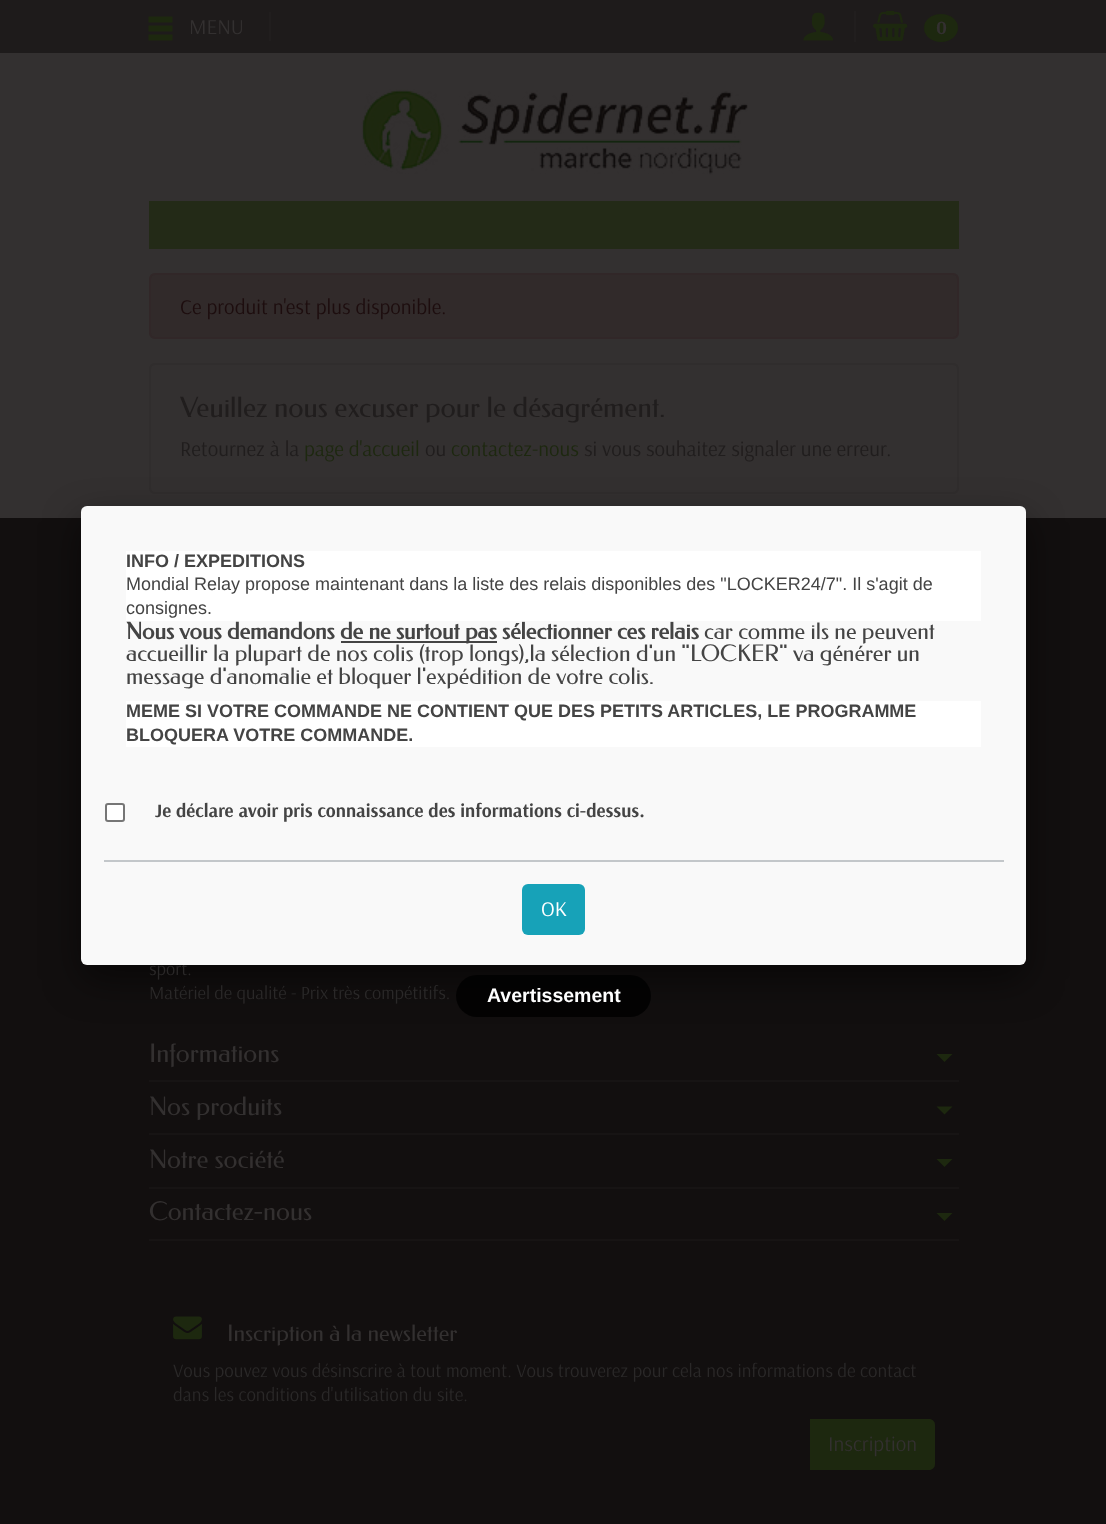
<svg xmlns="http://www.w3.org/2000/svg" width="1106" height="1524">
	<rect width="100%" height="100%" fill="#333030" />
	<rect x="0" y="0" width="1106" height="53" fill="#1E1B1B" />
	<rect x="269" y="12" width="2" height="29" fill="#211E1E" />
	<image x="148" y="16" width="25" height="25" href="assets/img1.png" />
	<text x="189" y="34" font-family="Arsenal" font-size="21" fill="#333030">MENU</text>
	<image x="803" y="12" width="31" height="29" href="assets/img2.png" />
	<rect x="854" y="11" width="2" height="31" fill="#211E1E" />
	<image x="873" y="10" width="35" height="31" href="assets/img3.png" />
	<ellipse cx="941" cy="28" rx="17" ry="14" fill="#1D280F" />
	<text x="936" y="34" font-family="Arsenal" font-size="19" font-weight="700" fill="#333030">0</text>
	<image x="361" y="89" width="387" height="86" href="assets/img4.png" />
	<rect x="149" y="201" width="810" height="48" fill="#232A17" />
	<rect x="150" y="274" width="808" height="64" rx="5" fill="#312A2A" stroke="#312728" stroke-width="2" />
	<text x="180" y="314" font-family="Arsenal" font-size="21" fill="#1D0D0E">Ce produit n'est plus disponible.</text>
	<rect x="150" y="364" width="808" height="129" rx="5" fill="none" stroke="#302D2D" stroke-width="2" />
	<text x="180" y="417" font-family="Federo" font-size="28" fill="#201D1D">Veuillez nous excuser pour le désagrément.</text>
	<text x="180" y="456" font-family="Arsenal" font-size="21" fill="#201D1D">Retournez à la</text>
	<text x="304" y="456" font-family="Arsenal" font-size="21" fill="#1D280F">page d'accueil</text>
	<text x="425" y="456" font-family="Arsenal" font-size="21" fill="#201D1D">ou</text>
	<text x="451" y="456" font-family="Arsenal" font-size="21" fill="#1D280F">contactez-nous</text>
	<text x="584" y="456" font-family="Arsenal" font-size="21" fill="#201D1D">si vous souhaitez signaler une erreur.</text>
	<rect x="0" y="518" width="1106" height="1006" fill="#120F0F" />
	<rect x="81" y="521" width="945" height="459" rx="6" fill="#000000" fill-opacity="0.5" filter="blur(19px)" />
	<text x="149" y="975" font-family="Arsenal" font-size="18.4" fill="#2A2828">sport.</text>
	<rect x="81" y="506" width="945" height="459" rx="6" fill="#F9F9F9" />
	<rect x="126" y="551" width="855" height="70" fill="#FFFFFF" />
	<text x="126" y="567" font-family="Liberation Sans" font-size="18" font-weight="700" fill="#444444">INFO / EXPEDITIONS</text>
	<g font-family="Liberation Sans" font-size="18" fill="#444444">
		<text x="126" y="590">Mondial Relay propose maintenant dans la liste des relais disponibles des "LOCKER24/7". Il s'agit de</text>
		<text x="126" y="614">consignes.</text>
	</g>
	<text x="126" y="639" font-family="Federo" font-size="22.7" font-weight="700" fill="#444444">Nous vous demandons</text>
	<rect x="341" y="641" width="156" height="2" fill="#444444" />
	<text x="340" y="639" font-family="Federo" font-size="22.7" font-weight="700" fill="#444444">de ne surtout pas sélectionner ces relais</text>
	<g font-family="Federo" font-size="22.7" fill="#444444">
		<text x="704" y="639">car comme ils ne peuvent</text>
		<text x="126" y="661">accueillir la plupart de nos colis (trop longs),la sélection d'un "LOCKER" va générer un</text>
		<text x="126" y="684">message d'anomalie et bloquer l'expédition de votre colis.</text>
	</g>
	<rect x="126" y="701" width="855" height="46" fill="#FFFFFF" />
	<g font-family="Liberation Sans" font-size="18" font-weight="700" fill="#444444">
		<text x="126" y="717">MEME SI VOTRE COMMANDE NE CONTIENT QUE DES PETITS ARTICLES, LE PROGRAMME</text>
		<text x="126" y="741">BLOQUERA VOTRE COMMANDE.</text>
	</g>
	<rect x="106" y="804" width="18" height="17" rx="2" fill="#FFFFFF" stroke="#767676" stroke-width="2" />
	<text x="155" y="817" font-family="Arsenal" font-size="18.9" font-weight="700" fill="#444444">Je déclare avoir pris connaissance des informations ci-dessus.</text>
	<rect x="104" y="860" width="900" height="2" fill="#C3C7CA" />
	<rect x="522" y="884" width="63" height="51" rx="6" fill="#17A2B8" />
	<text x="541" y="916" font-family="Arsenal" font-size="21" fill="#FFFFFF">OK</text>
	<rect x="456" y="975" width="195" height="42" rx="21" fill="#000000" fill-opacity="0.8" />
	<text x="487" y="1002" font-family="Liberation Sans" font-size="19.5" font-weight="700" fill="#FFFFFF">Avertissement</text>
	<text x="149" y="999" font-family="Arsenal" font-size="18.4" fill="#2A2828">Matériel de qualité - Prix très compétitifs.</text>
	<rect x="149" y="1080" width="810" height="2" fill="#171414" />
	<text x="149" y="1062" font-family="Federo" font-size="25.5" fill="#333030">Informations</text>
	<path d="M936.5 1054H952.5L944.5 1062Z" fill="#1D280F" />
	<rect x="149" y="1133" width="810" height="2" fill="#171414" />
	<text x="149" y="1115" font-family="Federo" font-size="25.5" fill="#333030">Nos produits</text>
	<path d="M936.5 1106.5H952.5L944.5 1114.5Z" fill="#1D280F" />
	<rect x="149" y="1187" width="810" height="2" fill="#171414" />
	<text x="149" y="1168" font-family="Federo" font-size="25.5" fill="#333030">Notre société</text>
	<path d="M936.5 1159H952.5L944.5 1167Z" fill="#1D280F" />
	<rect x="149" y="1239" width="810" height="2" fill="#171414" />
	<text x="149" y="1220" font-family="Federo" font-size="25.5" fill="#333030">Contactez-nous</text>
	<path d="M936.5 1213H952.5L944.5 1221Z" fill="#1D280F" />
	<image x="173" y="1316" width="29" height="24" href="assets/img5.png" />
	<text x="227" y="1341" font-family="Federo" font-size="22.7" fill="#333030">Inscription à la newsletter</text>
	<g font-family="Arsenal" font-size="18.9" fill="#2A2828">
		<text x="173" y="1377">Vous pouvez vous désinscrire à tout moment. Vous trouverez pour cela nos informations de contact</text>
		<text x="173" y="1401">dans les conditions d'utilisation du site.</text>
	</g>
	<path d="M810 1419H929C932.5 1419 935 1421.5 935 1425V1464C935 1467.5 932.5 1470 929 1470H810Z" fill="#1D280F" />
	<text x="828" y="1451" font-family="Arsenal" font-size="21" fill="#333030">Inscription</text>
</svg>
